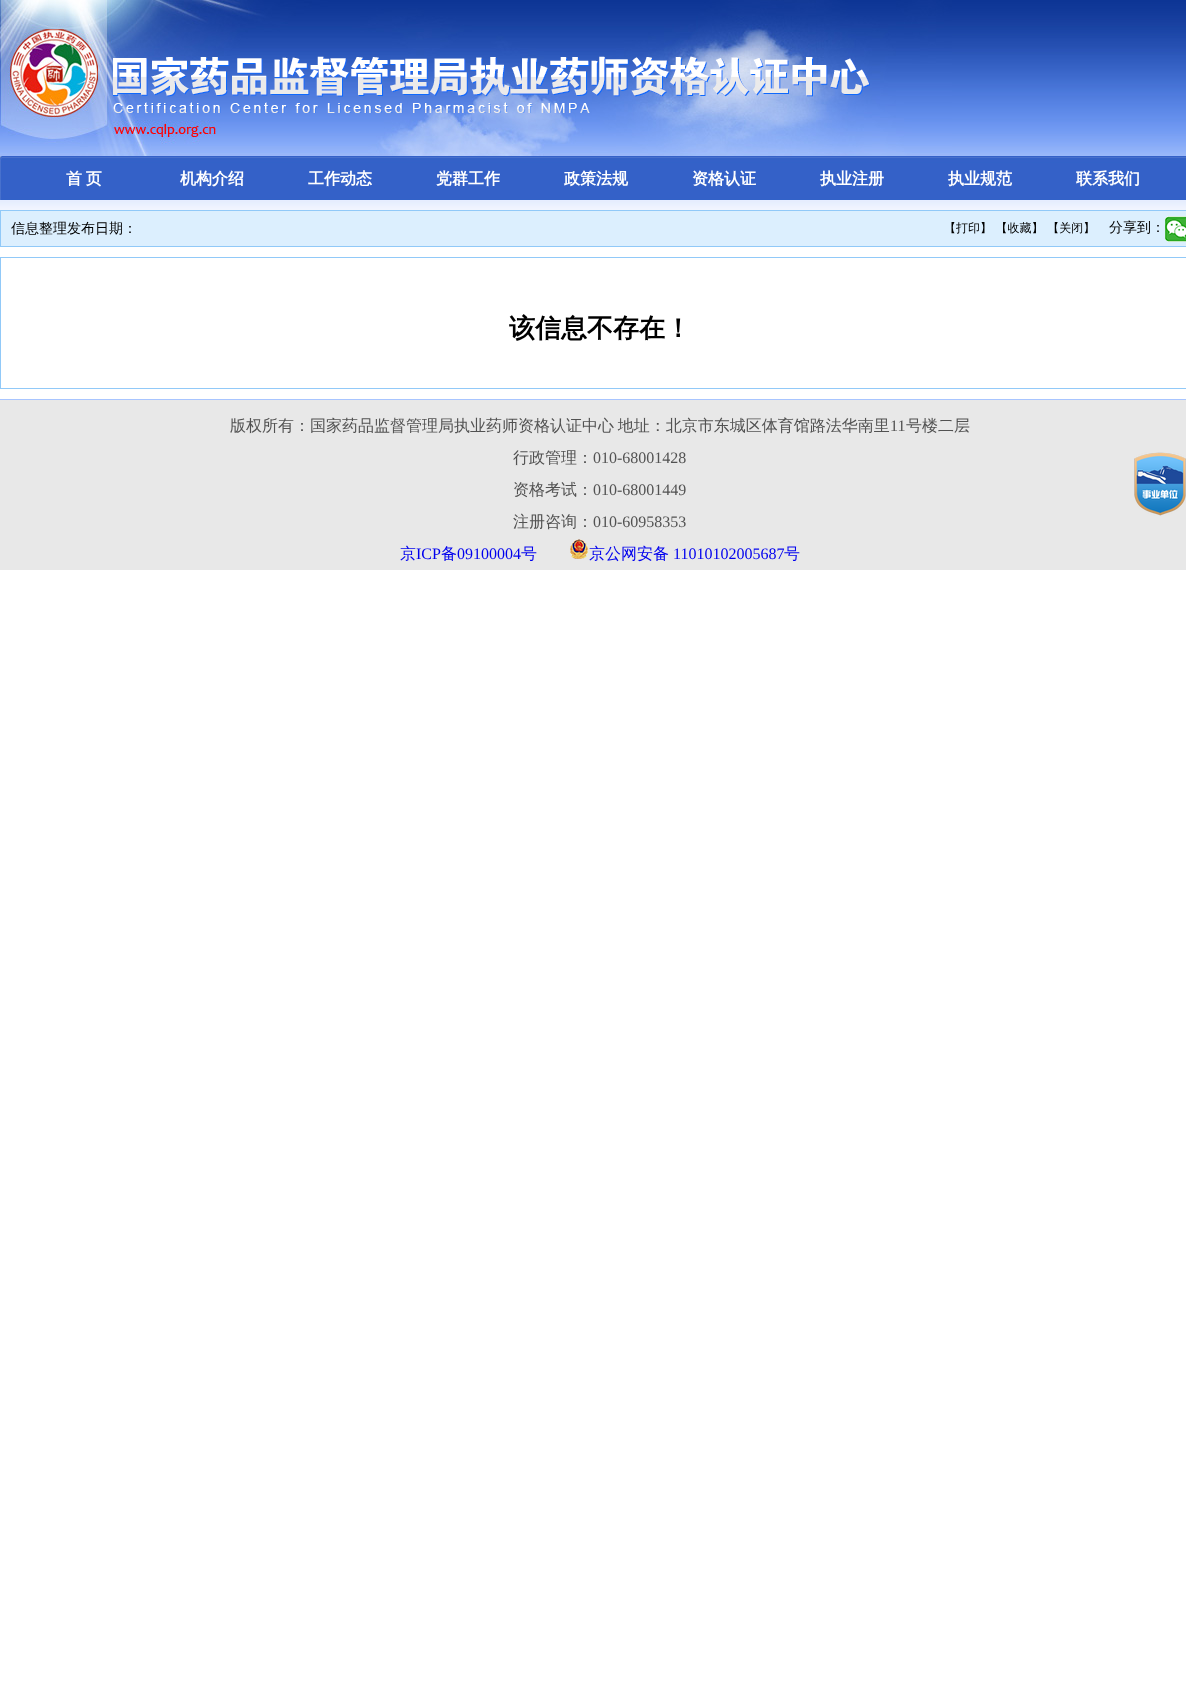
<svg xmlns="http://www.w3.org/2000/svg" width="1186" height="1700">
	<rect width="100%" height="100%" fill="#FFFFFF" />
	<image x="0" y="0" width="1186" height="210" href="assets/img1.png" />
	<image x="0" y="0" width="952" height="156" href="assets/img2.png" />
	<image x="113" y="56" width="757" height="57" href="assets/img3.png" />
	<image x="2" y="156" width="1184" height="44" href="assets/img4.png" />
	<image x="0" y="156" width="2" height="44" href="assets/img5.png" />
	<g font-family="WenQuanYi Zen Hei" font-size="16" font-weight="700" fill="#FFFFFF">
		<text x="66" y="184" word-spacing="-1">首 页</text>
		<text x="180" y="184">机构介绍</text>
		<text x="308" y="184">工作动态</text>
		<text x="436" y="184">党群工作</text>
		<text x="564" y="184">政策法规</text>
		<text x="692" y="184">资格认证</text>
		<text x="820" y="184">执业注册</text>
		<text x="948" y="184">执业规范</text>
		<text x="1076" y="184">联系我们</text>
	</g>
	<rect x="0.5" y="210.5" width="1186" height="36" fill="#DCEFFE" stroke="#91C9F8" />
	<text x="11" y="233" font-family="WenQuanYi Zen Hei" font-size="14" font-weight="500" fill="#000000">信息整理发布日期：</text>
	<text x="944" y="232" font-family="WenQuanYi Zen Hei" font-size="12" font-weight="500" fill="#000000">【打印】 【收藏】 【关闭】</text>
	<text x="1109" y="232" font-family="WenQuanYi Zen Hei" font-size="14" font-weight="500" fill="#000000">分享到：</text>
	<image x="1165" y="216" width="21" height="26" href="assets/img6.png" />
	<rect x="0.5" y="257.5" width="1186" height="131" fill="none" stroke="#91C9F8" />
	<text x="509" y="337" font-family="WenQuanYi Zen Hei" font-size="26" font-weight="700" fill="#000000">该信息不存在！</text>
	<rect x="0" y="400" width="1186" height="170" fill="#E8E8E8" />
	<rect x="0" y="399" width="1186" height="1" fill="#A8C5FF" />
	<text x="230" y="431" word-spacing="-1" font-family="WenQuanYi Zen Hei" font-size="16" font-weight="500" fill="#525252">版权所有：国家药品监督管理局执业药师资格认证中心 地址：北京市东城区体育馆路法华南里</text>
	<text x="890" y="431" font-family="Liberation Serif" font-size="16" fill="#525252">11</text>
	<g font-family="WenQuanYi Zen Hei" font-size="16" font-weight="500" fill="#525252">
		<text x="906" y="431">号楼二层</text>
		<text x="513" y="463">行政管理：</text>
	</g>
	<text x="593" y="463" font-family="Liberation Serif" font-size="16" fill="#525252">010-68001428</text>
	<image x="1134" y="452" width="52" height="64" href="assets/img7.png" />
	<text x="513" y="495" font-family="WenQuanYi Zen Hei" font-size="16" font-weight="500" fill="#525252">资格考试：</text>
	<text x="593" y="495" font-family="Liberation Serif" font-size="16" fill="#525252">010-68001449</text>
	<text x="513" y="527" font-family="WenQuanYi Zen Hei" font-size="16" font-weight="500" fill="#525252">注册咨询：</text>
	<text x="593" y="527" font-family="Liberation Serif" font-size="16" fill="#525252">010-60958353</text>
	<text x="400" y="559" font-family="WenQuanYi Zen Hei" font-size="16" font-weight="500" fill="#0000EE">京</text>
	<text x="416" y="559" font-family="Liberation Serif" font-size="16" fill="#0000EE">ICP</text>
	<text x="441" y="559" font-family="WenQuanYi Zen Hei" font-size="16" font-weight="500" fill="#0000EE">备</text>
	<text x="457" y="559" font-family="Liberation Serif" font-size="16" fill="#0000EE">09100004</text>
	<text x="521" y="559" font-family="WenQuanYi Zen Hei" font-size="16" font-weight="500" fill="#0000EE">号</text>
	<image x="570" y="539" width="18" height="20" href="assets/img8.png" />
	<text x="589" y="559" font-family="WenQuanYi Zen Hei" font-size="16" font-weight="500" fill="#0000EE">京公网安备</text>
	<text x="673" y="559" font-family="Liberation Serif" font-size="16" fill="#0000EE">11010102005687</text>
	<text x="784" y="559" font-family="WenQuanYi Zen Hei" font-size="16" font-weight="500" fill="#0000EE">号</text>
</svg>
